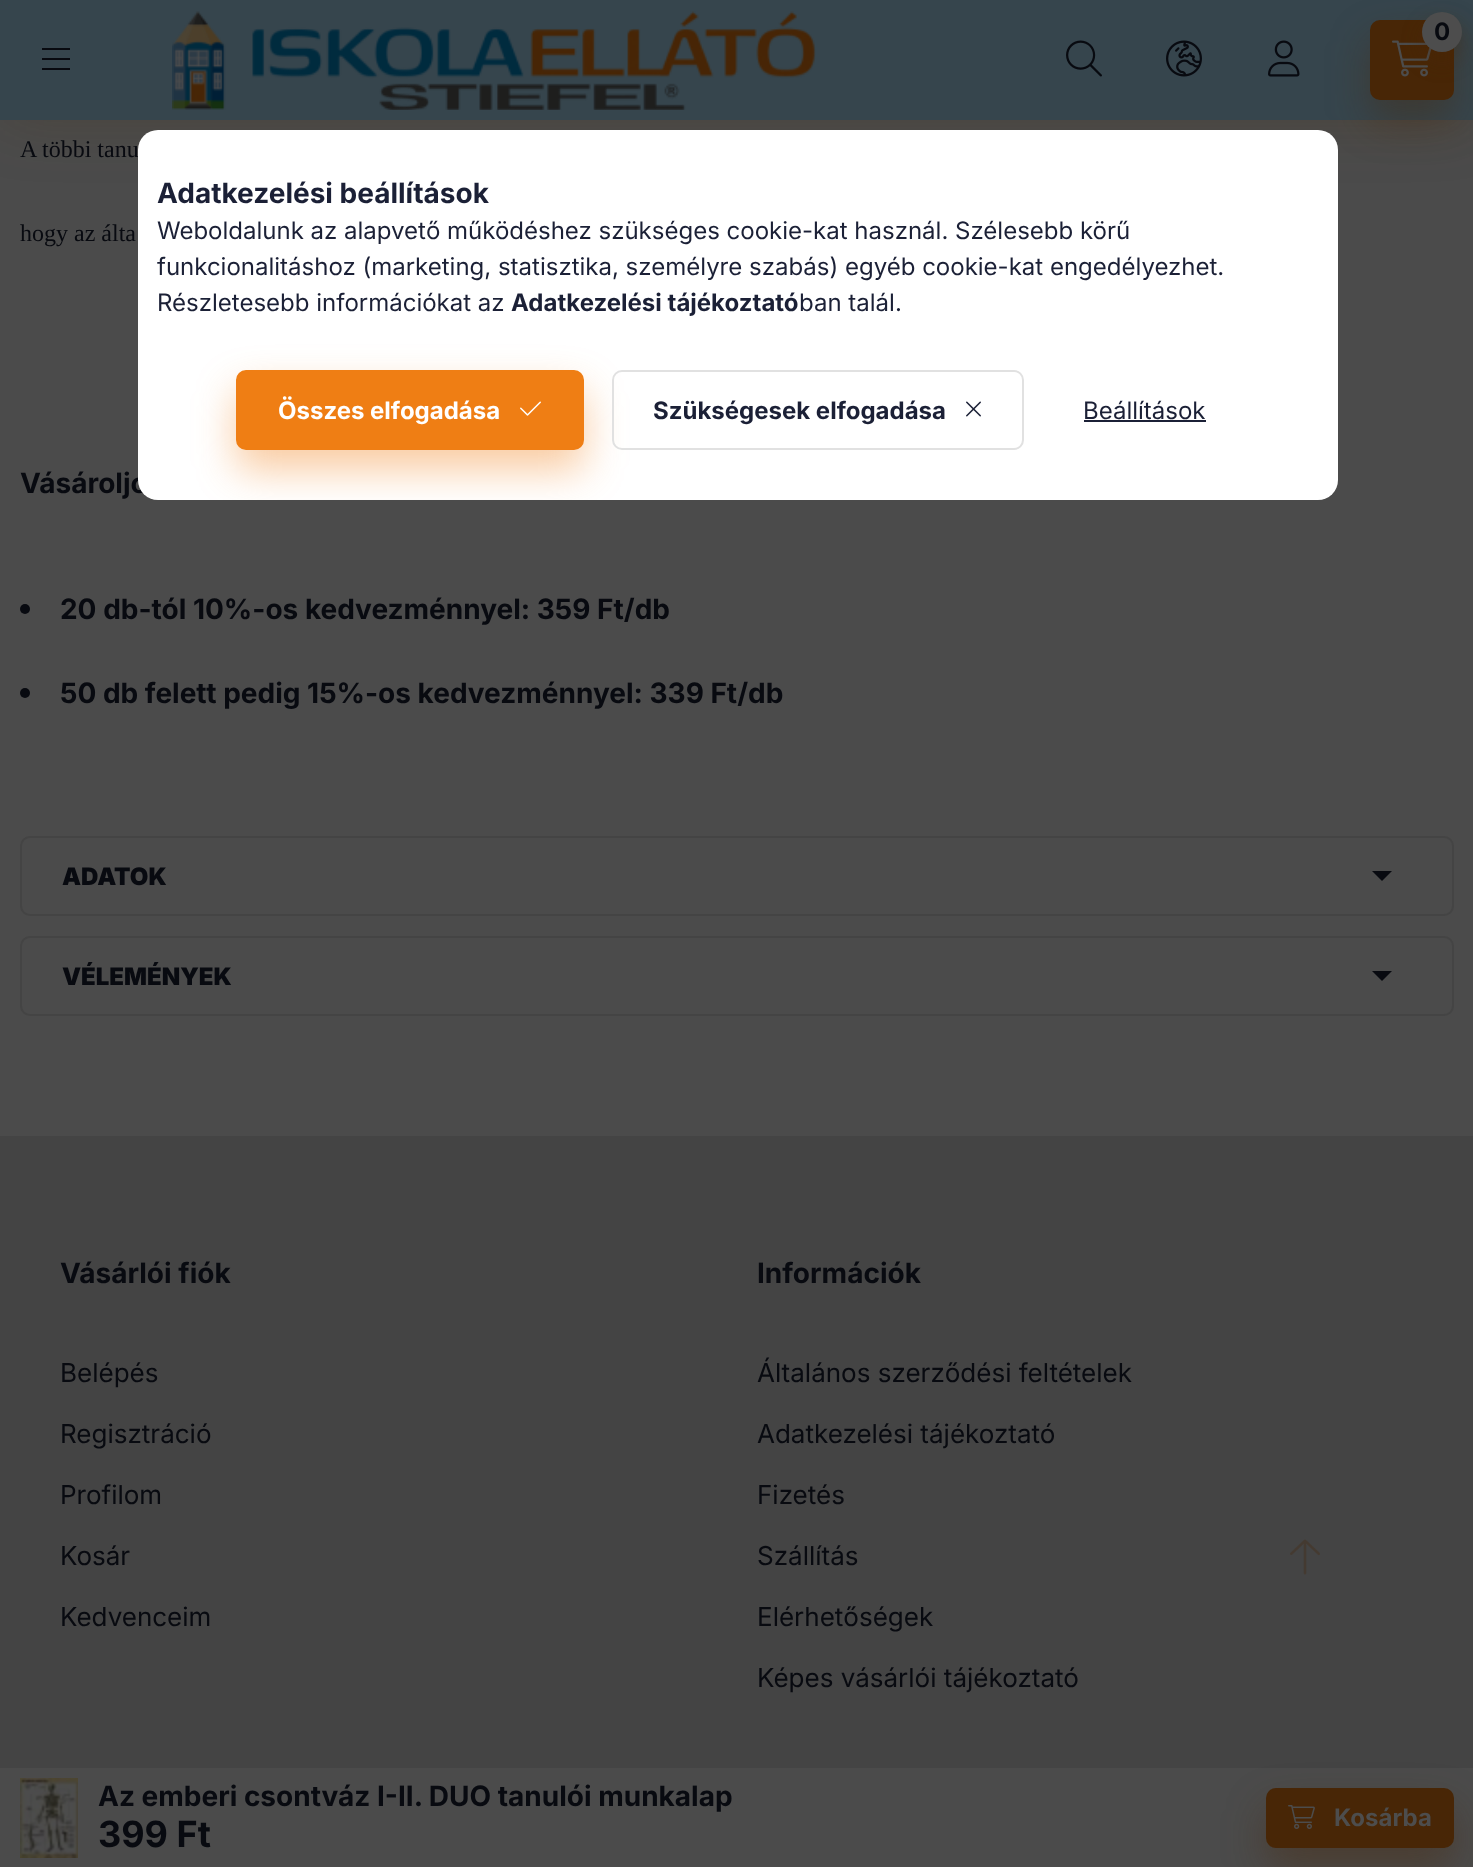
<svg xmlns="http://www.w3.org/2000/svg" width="1473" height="1867">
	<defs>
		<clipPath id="clip1"><rect x="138" y="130" width="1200" height="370" rx="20" /></clipPath>
	</defs>
	<rect width="100%" height="100%" fill="#4B4B4B" />
	<rect x="0" y="0" width="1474" height="120" fill="#482606" fill-opacity="0.2" filter="blur(30px)" />
	<rect x="0" y="0" width="1473" height="120" fill="#36454D" />
	<rect x="42" y="48" width="28" height="2" fill="#080A10" />
	<rect x="42" y="58" width="28" height="2" fill="#080A10" />
	<rect x="42" y="68" width="28" height="2" fill="#080A10" />
	<image x="172" y="11" width="644" height="99" href="assets/img1.png" />
	<rect x="1370" y="40" width="84" height="80" rx="10" fill="#482606" fill-opacity="0.4" filter="blur(20px)" />
	<rect x="1370" y="20" width="84" height="80" rx="10" fill="#482606" />
	<image x="1392" y="40" width="40" height="37" href="assets/img2.png" />
	<rect x="1422" y="22" width="40" height="40" rx="20" fill="#482606" fill-opacity="0.4" filter="blur(10px)" />
	<circle cx="1442" cy="32" r="20" fill="#4D4D4D" />
	<text x="1434" y="40" font-family="Inter" font-size="24" font-weight="700" fill="#080A10">0</text>
	<image x="1066" y="40" width="36" height="37" href="assets/img3.png" />
	<image x="1166" y="40" width="36" height="37" href="assets/img4.png" />
	<image x="1268" y="40" width="32" height="37" href="assets/img5.png" />
	<g font-family="Liberation Serif" font-size="24" fill="#080A10">
		<text x="20" y="157">A többi tanu</text>
		<text x="20" y="241">hogy az álta</text>
	</g>
	<text x="20" y="493" font-family="Inter" font-size="28" font-weight="700" fill="#080A10">Vásároljo</text>
	<circle cx="25" cy="609" r="5" fill="#080A10" />
	<text x="60" y="619" font-family="Inter" font-size="28" font-weight="700" fill="#080A10">20 db-tól 10%-os kedvezménnyel: 359 Ft/db</text>
	<circle cx="25" cy="693" r="5" fill="#080A10" />
	<text x="60" y="703" font-family="Inter" font-size="28" font-weight="700" fill="#080A10">50 db felett pedig 15%-os kedvezménnyel: 339 Ft/db</text>
	<rect x="21" y="837" width="1432" height="78" rx="9" fill="none" stroke="#444444" stroke-width="2" />
	<text x="62" y="885" font-family="Inter" font-size="24" font-weight="900" fill="#080A10">ADATOK</text>
	<path d="M1372 871H1392L1382 881Z" fill="#080A10" />
	<rect x="21" y="937" width="1432" height="78" rx="9" fill="none" stroke="#444444" stroke-width="2" />
	<text x="62" y="985" font-family="Inter" font-size="24" font-weight="900" fill="#080A10">VÉLEMÉNYEK</text>
	<path d="M1372 971H1392L1382 981Z" fill="#080A10" />
	<image x="20" y="1778" width="58" height="80" href="assets/img6.png" />
	<text x="98" y="1806" font-family="Inter" font-size="28" font-weight="700" fill="#080A10">Az emberi csontváz I-II. DUO tanulói munkalap</text>
	<text x="98" y="1847" font-family="Inter" font-size="36" font-weight="700" fill="#080A10">399 Ft</text>
	<rect x="0" y="1136" width="1473" height="632" fill="#444444" />
	<rect x="1266" y="1808" width="188" height="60" rx="10" fill="#482606" fill-opacity="0.4" filter="blur(20px)" />
	<rect x="1266" y="1788" width="188" height="60" rx="10" fill="#482606" />
	<image x="1288" y="1805" width="27" height="24" href="assets/img7.png" />
	<text x="1334" y="1826" font-family="Inter" font-size="24" font-weight="700" fill="#4D4D4D">Kosárba</text>
	<text x="60" y="1283" font-family="Inter" font-size="28" font-weight="700" fill="#080A10">Vásárlói fiók</text>
	<g font-family="Inter" font-size="26" fill="#080A10">
		<text x="60" y="1382">Belépés</text>
		<text x="60" y="1443">Regisztráció</text>
		<text x="60" y="1504">Profilom</text>
		<text x="60" y="1565">Kosár</text>
		<text x="60" y="1626">Kedvenceim</text>
	</g>
	<text x="757" y="1283" font-family="Inter" font-size="28" font-weight="700" fill="#080A10">Információk</text>
	<g font-family="Inter" font-size="26" fill="#080A10">
		<text x="757" y="1382">Általános szerződési feltételek</text>
		<text x="757" y="1443">Adatkezelési tájékoztató</text>
		<text x="757" y="1504">Fizetés</text>
		<text x="757" y="1565">Szállítás</text>
		<text x="757" y="1626">Elérhetőségek</text>
		<text x="757" y="1687">Képes vásárlói tájékoztató</text>
	</g>
	<rect x="138" y="130" width="1200" height="370" rx="20" fill="#FFFFFF" />
	<text x="157" y="203" font-family="Inter" font-size="28" font-weight="700" fill="#1B2036">Adatkezelési beállítások</text>
	<g font-family="Inter" font-size="24" fill="#1B2036">
		<text x="157" y="239">Weboldalunk az alapvető működéshez szükséges cookie-kat használ. Szélesebb körű</text>
		<text x="157" y="275">funkcionalitáshoz (marketing, statisztika, személyre szabás) egyéb cookie-kat engedélyezhet.</text>
		<text x="157" y="311">Részletesebb információkat az</text>
	</g>
	<text x="511" y="311" font-family="Inter" font-size="24" font-weight="700" fill="#1B2036">Adatkezelési tájékoztató</text>
	<text x="799" y="311" font-family="Inter" font-size="24" fill="#1B2036">ban talál.</text>
	<g clip-path="url(#clip1)">
		<rect x="236" y="390" width="348" height="80" rx="10" fill="#EF7E14" fill-opacity="0.4" filter="blur(20px)" />
	</g>
	<rect x="237" y="371" width="346" height="78" rx="9" fill="#EF7E14" stroke="#EF7E14" stroke-width="2" />
	<text x="278" y="419" font-family="Inter" font-size="24" font-weight="700" fill="#FFFFFF">Összes elfogadása</text>
	<image x="520" y="401" width="21" height="15" href="assets/img8.png" />
	<rect x="613" y="371" width="410" height="78" rx="9" fill="none" stroke="#E1E1E1" stroke-width="2" />
	<text x="653" y="419" font-family="Inter" font-size="24" font-weight="700" fill="#1B2036">Szükségesek elfogadása</text>
	<image x="966" y="401" width="15" height="16" href="assets/img9.png" />
	<text x="1083" y="419" font-family="Inter" font-size="24" fill="#1B2036">Beállítások</text>
	<rect x="1084" y="420" width="122" height="2" fill="#1B2036" />
	<image x="1290" y="1539" width="30" height="36" href="assets/img10.png" />
</svg>
